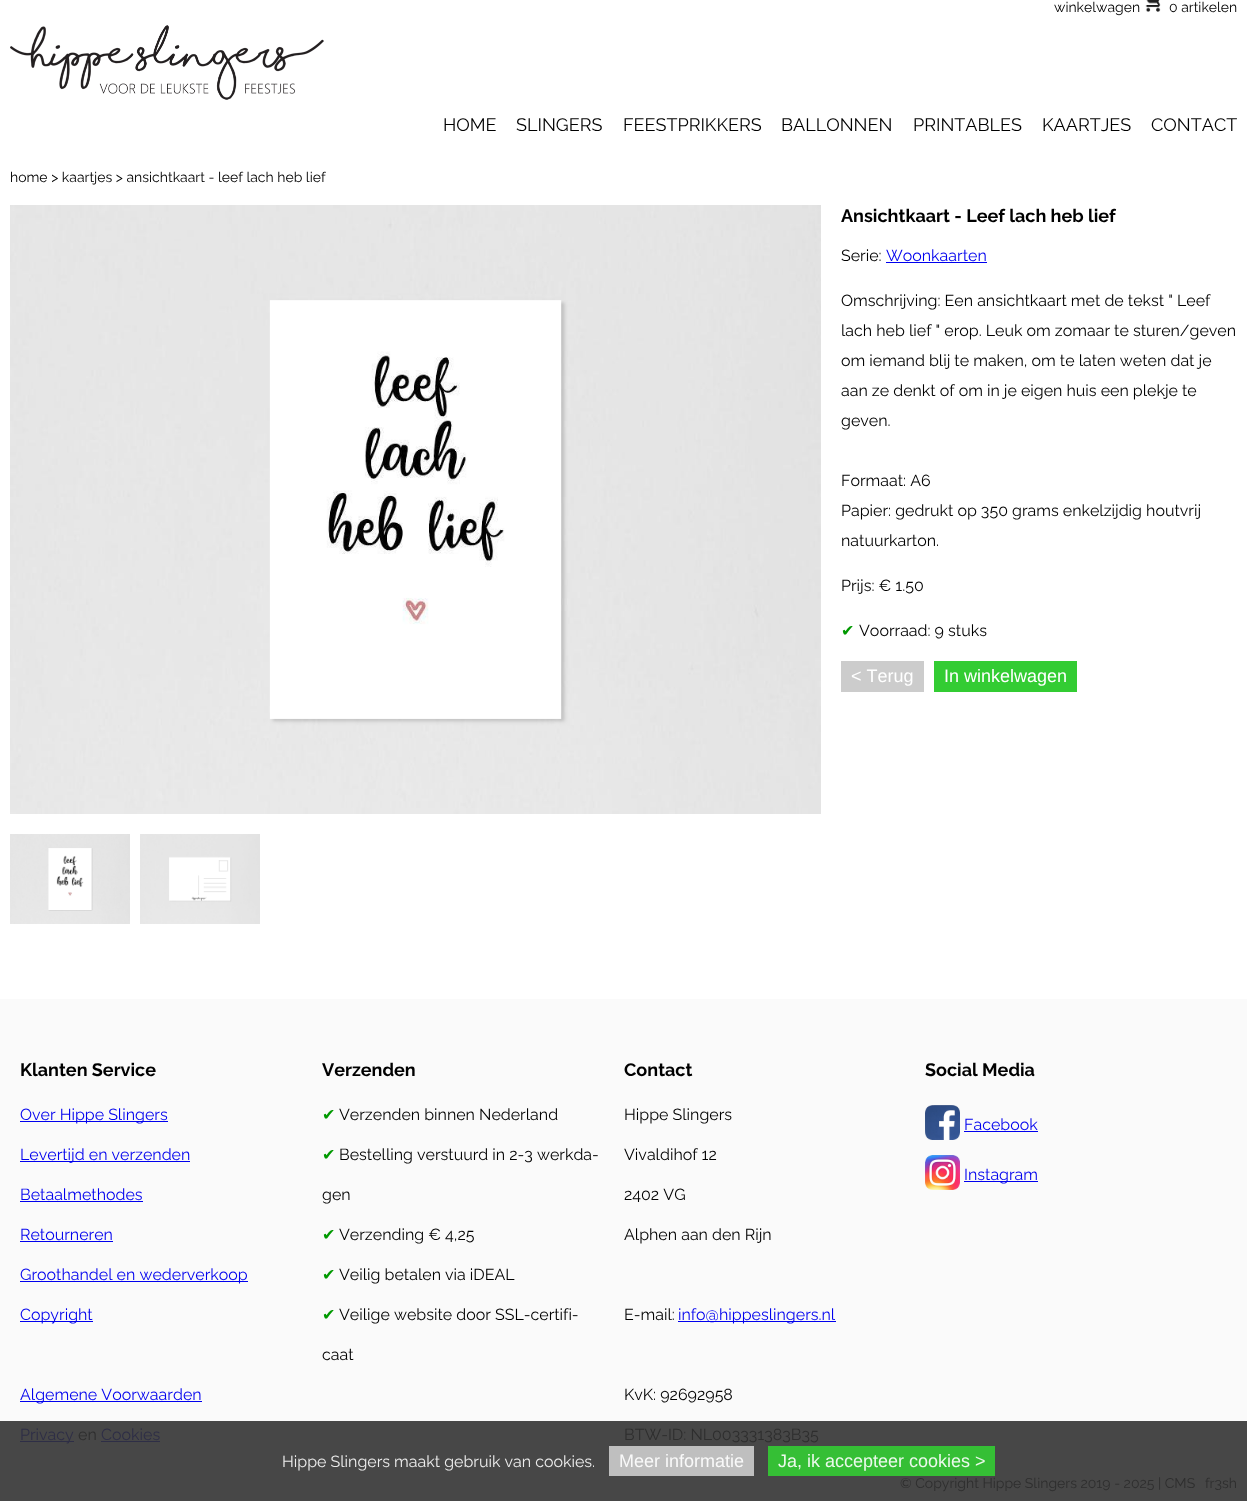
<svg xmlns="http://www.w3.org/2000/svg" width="1247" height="1501">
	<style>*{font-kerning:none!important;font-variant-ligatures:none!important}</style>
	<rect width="100%" height="100%" fill="#FFFFFF" />
	<rect x="0" y="1421" width="1247" height="80" fill="#474747" />
	<text x="1054" y="12" font-family="Raleway" font-size="14" fill="#000000">winkelwagen</text>
	<image x="1145" y="0" width="16" height="12" href="assets/img1.png" />
	<text x="1169" y="12" font-family="Raleway" font-size="14" fill="#000000">0 artikelen</text>
	<image x="10" y="25" width="314" height="75" href="assets/img2.png" />
	<g font-family="Raleway" font-size="18" fill="#000000">
		<text x="443" y="131">HOME</text>
		<text x="516" y="131">SLINGERS</text>
		<text x="623" y="131">FEESTPRIKKERS</text>
		<text x="781" y="131">BALLONNEN</text>
		<text x="913" y="131">PRINTABLES</text>
		<text x="1042" y="131">KAARTJES</text>
		<text x="1151" y="131">CONTACT</text>
	</g>
	<text x="10" y="182" font-family="Raleway" font-size="14" fill="#000000">home &gt; kaartjes &gt; ansichtkaart - leef lach heb lief</text>
	<image x="10" y="205" width="811" height="609" href="assets/img3.png" />
	<image x="10" y="834" width="120" height="90" href="assets/img4.png" />
	<image x="140" y="834" width="120" height="90" href="assets/img5.png" />
	<text x="841" y="222" font-family="Raleway" font-size="18" font-weight="700" fill="#000000">Ansichtkaart - Leef lach heb lief</text>
	<text x="841" y="261" font-family="Raleway" font-size="16" fill="#000000">Serie:</text>
	<text x="886" y="261" font-family="Raleway" font-size="16" fill="#0000EE">Woonkaarten</text>
	<rect x="886" y="262" width="101" height="1" fill="#0000EE" />
	<g font-family="Raleway" font-size="16" fill="#000000">
		<text x="841" y="306">Omschrijving: Een ansichtkaart met de tekst " Leef</text>
		<text x="841" y="336">lach heb lief " erop. Leuk om zomaar te sturen/geven</text>
		<text x="841" y="366">om iemand blij te maken, om te laten weten dat je</text>
		<text x="841" y="396">aan ze denkt of om in je eigen huis een plekje te</text>
		<text x="841" y="426">geven.</text>
		<text x="841" y="486">Formaat: A6</text>
		<text x="841" y="516">Papier: gedrukt op 350 grams enkelzijdig houtvrij</text>
		<text x="841" y="546">natuurkarton.</text>
		<text x="841" y="591">Prijs: € 1.50</text>
	</g>
	<text x="841" y="636" font-family="DejaVu Sans" font-size="16" fill="#009900">✔︎</text>
	<text x="859" y="636" font-family="Raleway" font-size="16" fill="#000000">Voorraad: 9 stuks</text>
	<rect x="841" y="661" width="83" height="31" fill="#CCCCCC" />
	<text x="851" y="682" font-family="Liberation Sans" font-size="18" fill="#FFFFFF">&lt; Terug</text>
	<rect x="934" y="661" width="143" height="31" fill="#33CC33" />
	<text x="944" y="682" font-family="Liberation Sans" font-size="18" fill="#FFFFFF">In winkelwagen</text>
	<rect x="0" y="999" width="1247" height="422" fill="#FAFAFA" />
	<text x="20" y="1076" font-family="Raleway" font-size="18" font-weight="700" fill="#000000">Klanten Service</text>
	<rect x="20" y="1121" width="148" height="1" fill="#0000EE" />
	<text x="20" y="1120" font-family="Raleway" font-size="16" fill="#0000EE">Over Hippe Slingers</text>
	<rect x="20" y="1161" width="170" height="1" fill="#0000EE" />
	<g font-family="Raleway" font-size="16" fill="#0000EE">
		<text x="20" y="1160">Levertijd en verzenden</text>
		<text x="20" y="1200">Betaalmethodes</text>
	</g>
	<rect x="20" y="1201" width="123" height="1" fill="#0000EE" />
	<text x="20" y="1240" font-family="Raleway" font-size="16" fill="#0000EE">Retourneren</text>
	<rect x="20" y="1241" width="93" height="1" fill="#0000EE" />
	<rect x="20" y="1281" width="228" height="1" fill="#0000EE" />
	<text x="20" y="1280" font-family="Raleway" font-size="16" fill="#0000EE">Groothandel en wederverkoop</text>
	<rect x="20" y="1321" width="73" height="1" fill="#0000EE" />
	<text x="20" y="1320" font-family="Raleway" font-size="16" fill="#0000EE">Copyright</text>
	<rect x="20" y="1401" width="182" height="1" fill="#0000EE" />
	<text x="20" y="1400" font-family="Raleway" font-size="16" fill="#0000EE">Algemene Voorwaarden</text>
	<rect x="20" y="1441" width="54" height="1" fill="#2E2E46" />
	<text x="20" y="1440" font-family="Raleway" font-size="16" fill="#2E2E46">Privacy</text>
	<text x="78" y="1440" font-family="Raleway" font-size="16" fill="#2E2E2E">en</text>
	<text x="101" y="1440" font-family="Raleway" font-size="16" fill="#2E2E46">Cookies</text>
	<rect x="101" y="1441" width="59" height="1" fill="#2E2E46" />
	<text x="322" y="1076" font-family="Raleway" font-size="18" font-weight="700" fill="#000000">Verzenden</text>
	<text x="322" y="1120" font-family="DejaVu Sans" font-size="16" fill="#009900">✔︎</text>
	<text x="339" y="1120" font-family="Raleway" font-size="16" fill="#000000">Verzenden binnen Nederland</text>
	<text x="322" y="1160" font-family="DejaVu Sans" font-size="16" fill="#009900">✔︎</text>
	<g font-family="Raleway" font-size="16" fill="#000000">
		<text x="339" y="1160">Bestelling verstuurd in 2-3 werkda-</text>
		<text x="322" y="1200">gen</text>
	</g>
	<text x="322" y="1240" font-family="DejaVu Sans" font-size="16" fill="#009900">✔︎</text>
	<text x="339" y="1240" font-family="Raleway" font-size="16" fill="#000000">Verzending € 4,25</text>
	<text x="322" y="1280" font-family="DejaVu Sans" font-size="16" fill="#009900">✔︎</text>
	<text x="339" y="1280" font-family="Raleway" font-size="16" fill="#000000">Veilig betalen via iDEAL</text>
	<text x="322" y="1320" font-family="DejaVu Sans" font-size="16" fill="#009900">✔︎</text>
	<g font-family="Raleway" font-size="16" fill="#000000">
		<text x="339" y="1320">Veilige website door SSL-certifi-</text>
		<text x="322" y="1360">caat</text>
	</g>
	<text x="624" y="1076" font-family="Raleway" font-size="18" font-weight="700" fill="#000000">Contact</text>
	<g font-family="Raleway" font-size="16" fill="#000000">
		<text x="624" y="1120">Hippe Slingers</text>
		<text x="624" y="1160">Vivaldihof 12</text>
		<text x="624" y="1200">2402 VG</text>
		<text x="624" y="1240">Alphen aan den Rijn</text>
		<text x="624" y="1320">E-mail:</text>
	</g>
	<rect x="678" y="1321" width="158" height="1" fill="#0000EE" />
	<text x="678" y="1320" font-family="Raleway" font-size="16" fill="#0000EE">info@hippeslingers.nl</text>
	<text x="624" y="1400" font-family="Raleway" font-size="16" fill="#000000">KvK: 92692958</text>
	<text x="624" y="1440" font-family="Raleway" font-size="16" fill="#2E2E2E">BTW-ID: NL003331383B35</text>
	<text x="925" y="1076" font-family="Raleway" font-size="18" font-weight="700" fill="#000000">Social Media</text>
	<image x="925" y="1105" width="35" height="35" href="assets/img6.png" />
	<text x="964" y="1130" font-family="Raleway" font-size="16" fill="#0000EE">Facebook</text>
	<rect x="964" y="1131" width="74" height="1" fill="#0000EE" />
	<image x="925" y="1155" width="35" height="35" href="assets/img7.png" />
	<rect x="964" y="1181" width="74" height="1" fill="#0000EE" />
	<text x="964" y="1180" font-family="Raleway" font-size="16" fill="#0000EE">Instagram</text>
	<text x="282" y="1467" font-family="Raleway" font-size="16" fill="#EDEDED">Hippe Slingers maakt gebruik van cookies.</text>
	<rect x="609" y="1446" width="145" height="30" fill="#BFBFBF" />
	<text x="619" y="1467" font-family="Liberation Sans" font-size="18" fill="#F9F9F9">Meer informatie</text>
	<rect x="768" y="1446" width="227" height="30" fill="#35BF35" />
	<text x="778" y="1467" font-family="Liberation Sans" font-size="18" fill="#EBF9EB">Ja, ik accepteer cookies &gt;</text>
	<g font-family="Raleway" font-size="14" fill="#2E2E2E">
		<text x="900" y="1488">© Copyright Hippe Slingers 2019 - 2025 | CMS</text>
		<text x="1205" y="1488">fr3sh</text>
	</g>
</svg>
